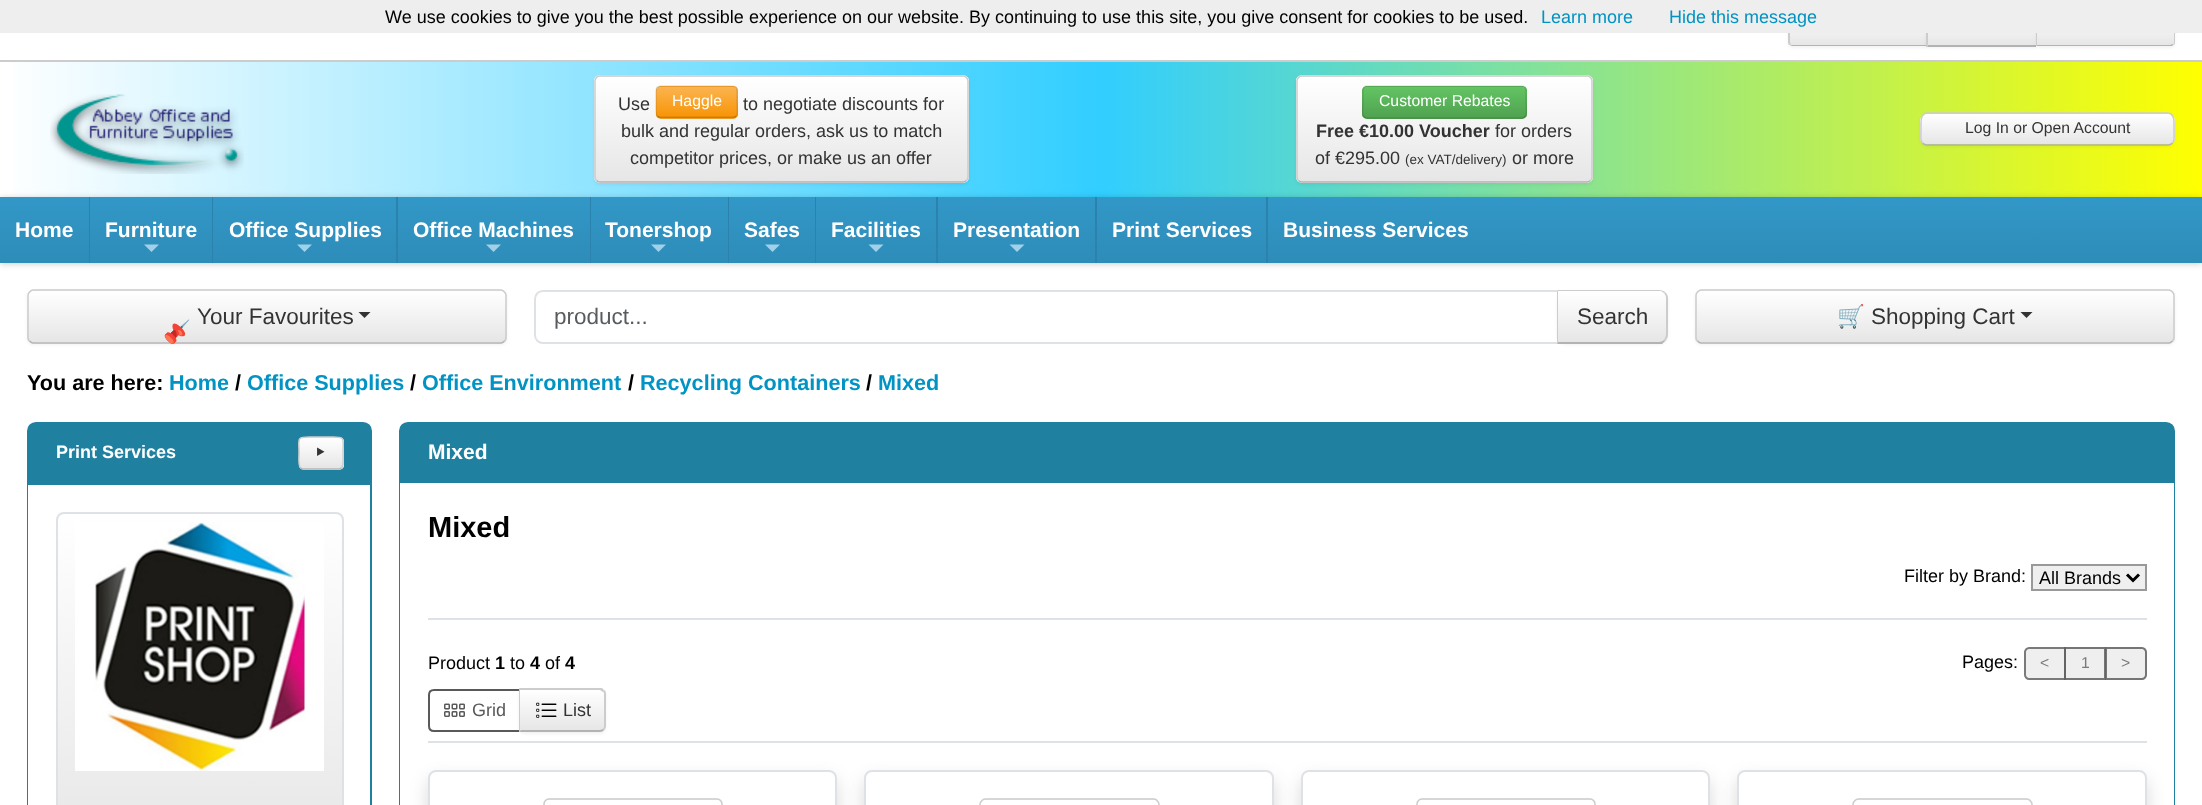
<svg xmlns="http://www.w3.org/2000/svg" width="2202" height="805">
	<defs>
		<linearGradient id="g1" gradientUnits="userSpaceOnUse" x1="1858" y1="15" x2="1858" y2="45"><stop offset="0" stop-color="#FFFFFF" /><stop offset="1" stop-color="#E6E6E6" /></linearGradient>
		<linearGradient id="g2" gradientUnits="userSpaceOnUse" x1="1982" y1="15" x2="1982" y2="45"><stop offset="0" stop-color="#FFFFFF" /><stop offset="1" stop-color="#E6E6E6" /></linearGradient>
		<linearGradient id="g3" gradientUnits="userSpaceOnUse" x1="2105" y1="15" x2="2105" y2="45"><stop offset="0" stop-color="#FFFFFF" /><stop offset="1" stop-color="#E6E6E6" /></linearGradient>
		<linearGradient id="g4" gradientUnits="userSpaceOnUse" x1="0" y1="98" x2="2202" y2="98"><stop offset="0" stop-color="#FFFFFF" /><stop offset="0.5" stop-color="#31CEFF" /><stop offset="1" stop-color="#FFFF00" /></linearGradient>
		<clipPath id="clip1"><rect x="594" y="75" width="375" height="108" rx="6" /></clipPath>
		<linearGradient id="g5" gradientUnits="userSpaceOnUse" x1="782" y1="76" x2="782" y2="182"><stop offset="0" stop-color="#FFFFFF" /><stop offset="1" stop-color="#E6E6E6" /></linearGradient>
		<clipPath id="clip2"><rect x="656" y="86" width="82" height="33" rx="5" /></clipPath>
		<linearGradient id="g6" gradientUnits="userSpaceOnUse" x1="697" y1="87" x2="697" y2="117"><stop offset="0" stop-color="#FBB450" /><stop offset="1" stop-color="#F89406" /></linearGradient>
		<clipPath id="clip3"><rect x="1296" y="75" width="297" height="108" rx="6" /></clipPath>
		<linearGradient id="g7" gradientUnits="userSpaceOnUse" x1="1445" y1="76" x2="1445" y2="182"><stop offset="0" stop-color="#FFFFFF" /><stop offset="1" stop-color="#E6E6E6" /></linearGradient>
		<clipPath id="clip4"><rect x="1362" y="86" width="165" height="33" rx="5" /></clipPath>
		<linearGradient id="g8" gradientUnits="userSpaceOnUse" x1="1445" y1="87" x2="1445" y2="117"><stop offset="0" stop-color="#62C462" /><stop offset="1" stop-color="#51A351" /></linearGradient>
		<clipPath id="clip5"><rect x="1920" y="113" width="255" height="33" rx="8" /></clipPath>
		<linearGradient id="g9" gradientUnits="userSpaceOnUse" x1="2048" y1="114" x2="2048" y2="144"><stop offset="0" stop-color="#FFFFFF" /><stop offset="1" stop-color="#E6E6E6" /></linearGradient>
		<linearGradient id="g10" gradientUnits="userSpaceOnUse" x1="1101" y1="196" x2="1101" y2="263"><stop offset="0" stop-color="#3298C8" /><stop offset="1" stop-color="#2E8CB8" /></linearGradient>
		<clipPath id="clip6"><rect x="27" y="290" width="480" height="54" rx="6" /></clipPath>
		<linearGradient id="g11" gradientUnits="userSpaceOnUse" x1="267" y1="291" x2="267" y2="342"><stop offset="0" stop-color="#FFFFFF" /><stop offset="1" stop-color="#E6E6E6" /></linearGradient>
		<clipPath id="clip7"><path d="M1557 290H1659C1664 290 1668 294 1668 299V335C1668 340 1664 344 1659 344H1557Z" /></clipPath>
		<linearGradient id="g12" gradientUnits="userSpaceOnUse" x1="1613" y1="291" x2="1613" y2="342"><stop offset="0" stop-color="#FFFFFF" /><stop offset="1" stop-color="#E6E6E6" /></linearGradient>
		<clipPath id="clip8"><rect x="1695" y="290" width="480" height="54" rx="6" /></clipPath>
		<linearGradient id="g13" gradientUnits="userSpaceOnUse" x1="1935" y1="291" x2="1935" y2="342"><stop offset="0" stop-color="#FFFFFF" /><stop offset="1" stop-color="#E6E6E6" /></linearGradient>
		<clipPath id="clip9"><rect x="299" y="437" width="45" height="33" rx="5" /></clipPath>
		<linearGradient id="g14" gradientUnits="userSpaceOnUse" x1="321" y1="438" x2="321" y2="468"><stop offset="0" stop-color="#FFFFFF" /><stop offset="1" stop-color="#E6E6E6" /></linearGradient>
		<clipPath id="clip10"><rect x="56" y="512" width="288" height="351" rx="8" /></clipPath>
		<linearGradient id="g15" gradientUnits="userSpaceOnUse" x1="200" y1="513" x2="200" y2="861"><stop offset="0" stop-color="#FFFFFF" /><stop offset="1" stop-color="#E6E6E6" /></linearGradient>
		<clipPath id="clip11"><path d="M519 689H600C603.5 689 606 691.5 606 695V726C606 729.5 603.5 732 600 732H519Z" /></clipPath>
		<linearGradient id="g16" gradientUnits="userSpaceOnUse" x1="563" y1="690" x2="563" y2="731"><stop offset="0" stop-color="#FFFFFF" /><stop offset="1" stop-color="#E6E6E6" /></linearGradient>
		<clipPath id="clip12"><path d="M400 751H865V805H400ZM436 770H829C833.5 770 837 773.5 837 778V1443C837 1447.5 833.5 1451 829 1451H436C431.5 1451 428 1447.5 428 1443V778C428 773.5 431.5 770 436 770Z" clip-rule="evenodd" /></clipPath>
		<clipPath id="clip13"><rect x="543" y="798" width="180" height="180" rx="6" /></clipPath>
		<linearGradient id="g17" gradientUnits="userSpaceOnUse" x1="633" y1="800" x2="633" y2="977"><stop offset="0" stop-color="#FFFFFF" /><stop offset="1" stop-color="#E6E6E6" /></linearGradient>
		<clipPath id="clip14"><rect x="980" y="798" width="180" height="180" rx="6" /></clipPath>
		<linearGradient id="g18" gradientUnits="userSpaceOnUse" x1="1070" y1="800" x2="1070" y2="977"><stop offset="0" stop-color="#FFFFFF" /><stop offset="1" stop-color="#E6E6E6" /></linearGradient>
		<clipPath id="clip15"><path d="M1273 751H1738V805H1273ZM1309 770H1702C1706.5 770 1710 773.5 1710 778V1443C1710 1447.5 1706.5 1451 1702 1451H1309C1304.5 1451 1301 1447.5 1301 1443V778C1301 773.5 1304.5 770 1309 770Z" clip-rule="evenodd" /></clipPath>
		<clipPath id="clip16"><rect x="1416" y="798" width="180" height="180" rx="6" /></clipPath>
		<linearGradient id="g19" gradientUnits="userSpaceOnUse" x1="1506" y1="800" x2="1506" y2="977"><stop offset="0" stop-color="#FFFFFF" /><stop offset="1" stop-color="#E6E6E6" /></linearGradient>
		<clipPath id="clip17"><rect x="1853" y="798" width="180" height="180" rx="6" /></clipPath>
		<linearGradient id="g20" gradientUnits="userSpaceOnUse" x1="1943" y1="800" x2="1943" y2="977"><stop offset="0" stop-color="#FFFFFF" /><stop offset="1" stop-color="#E6E6E6" /></linearGradient>
	</defs>
	<rect width="100%" height="100%" fill="#FFFFFF" />
	<rect x="1788" y="15" width="140" height="33" rx="5" fill="#000000" fill-opacity="0.05" filter="blur(1.5px)" />
	<path d="M1793 14H1928V47H1793C1790 47 1788 45 1788 42V19C1788 16 1790 14 1793 14Z" fill="#F5F5F5" />
	<rect x="1788" y="33" width="138" height="12" fill="url(#g1)" />
	<path d="M1927 46H1792L1790 45V44L1791 45H1926Z" fill="#B3B3B3" />
	<path d="M1788 18V42C1788 43 1788.5 44 1789.5 45L1790.5 44L1790 42V18L1790.5 16L1789.5 15C1788.5 16 1788 17 1788 18Z" fill="#CCCCCC" />
	<rect x="1926" y="15" width="111" height="33" fill="#000000" fill-opacity="0.05" filter="blur(1.5px)" />
	<rect x="1928" y="33" width="108" height="12" fill="url(#g2)" />
	<rect x="1926" y="45" width="111" height="2" fill="#B3B3B3" />
	<rect x="2036" y="15" width="139" height="33" rx="5" fill="#000000" fill-opacity="0.05" filter="blur(1.5px)" />
	<path d="M2036 14H2170C2173 14 2175 16 2175 19V42C2175 45 2173 47 2170 47H2036Z" fill="#F5F5F5" />
	<rect x="2037" y="33" width="138" height="12" fill="url(#g3)" />
	<path d="M2175 42V18C2175 17 2174.5 16 2173.5 15L2173 16C2173.5 16 2174 17 2174 18V42C2174 43 2173.5 44 2173 44L2173.5 45C2174.5 44 2175 43 2175 42Z" fill="#CCCCCC" />
	<path d="M2173 45C2173 46 2171 46 2170 46H2036L2037 45H2170L2173 44Z" fill="#B3B3B3" />
	<path d="M2037 15L2036 14V46L2037 45Z" fill="#CCCCCC" />
	<rect x="0" y="0" width="2202" height="33" fill="#EEEEEE" />
	<text x="385" y="23" font-family="Liberation Sans" font-size="18" fill="#000000">We use cookies to give you the best possible experience on our website. By continuing to use this site, you give consent for cookies to be used.</text>
	<g font-family="Liberation Sans" font-size="18" fill="#0093C3">
		<text x="1541" y="23">Learn more</text>
		<text x="1669" y="23">Hide this message</text>
	</g>
	<rect x="13" y="62" width="2189" height="135" fill="url(#g4)" />
	<rect x="0" y="60" width="2202" height="2" fill="#CCCCCC" />
	<rect x="1926" y="33" width="2" height="14" fill="#CCCCCC" />
	<image x="50" y="94" width="194" height="80" href="assets/img1.png" />
	<rect x="594" y="77" width="375" height="108" rx="6" fill="#000000" fill-opacity="0.05" filter="blur(1.5px)" />
	<rect x="594" y="75" width="375" height="108" rx="6" fill="#F5F5F5" />
	<g clip-path="url(#clip1)">
		<rect x="594" y="77" width="375" height="105" fill="url(#g5)" />
	</g>
	<path d="M966.5 180.5C965.5 181.5 964.5 182 963 182H600C598.5 182 597.5 181.5 596.5 180.5" fill="none" stroke="#B3B3B3" stroke-width="1.5" />
	<path d="M596.5 180.5C595.5 179.5 595 178.5 595 177V81C595 79.5 595.5 78.5 596.5 77.5C597.5 76.5 598.5 76 600 76H963C964.5 76 965.5 76.5 966.5 77.5C967.5 78.5 968 79.5 968 81V177C968 178.5 967.5 179.5 966.5 180.5" fill="none" stroke="#CCCCCC" stroke-width="1.5" />
	<text x="618" y="110" font-family="Liberation Sans" font-size="18" fill="#333333">Use</text>
	<rect x="656" y="86" width="82" height="33" rx="5" fill="#FAA732" />
	<g clip-path="url(#clip2)">
		<rect x="656" y="87" width="82" height="30" fill="url(#g6)" />
	</g>
	<path d="M736 116.5L734 117.5H659.5L657.5 116.5" fill="none" stroke="#000000" stroke-opacity="0.25" stroke-width="1.5" />
	<path d="M657.5 116.5C655 114.5 656 105 656 102C656 84 653.5 86 672 86H721C740 86 737 84 737 102C737 105 738.5 114.5 736 116.5" fill="none" stroke="#000000" stroke-opacity="0.1" stroke-width="1.5" />
	<text x="672" y="106" font-family="Liberation Sans" font-size="15.75" fill="#FFFFFF">Haggle</text>
	<g font-family="Liberation Sans" font-size="18" fill="#333333">
		<text x="743" y="110">to negotiate discounts for</text>
		<text x="621" y="137">bulk and regular orders, ask us to match</text>
		<text x="630" y="164">competitor prices, or make us an offer</text>
	</g>
	<rect x="1296" y="77" width="297" height="108" rx="6" fill="#000000" fill-opacity="0.05" filter="blur(1.5px)" />
	<rect x="1296" y="75" width="297" height="108" rx="6" fill="#F5F5F5" />
	<g clip-path="url(#clip3)">
		<rect x="1296" y="77" width="297" height="105" fill="url(#g7)" />
	</g>
	<path d="M1590.5 180.5C1589.5 181.5 1588.5 182 1587 182H1302C1300.5 182 1299.5 181.5 1298.5 180.5" fill="none" stroke="#B3B3B3" stroke-width="1.5" />
	<path d="M1298.5 180.5C1297.5 179.5 1297 178.5 1297 177V81C1297 79.5 1297.5 78.5 1298.5 77.5C1299.5 76.5 1300.5 76 1302 76H1587C1588.5 76 1589.5 76.5 1590.5 77.5C1591.5 78.5 1592 79.5 1592 81V177C1592 178.5 1591.5 179.5 1590.5 180.5" fill="none" stroke="#CCCCCC" stroke-width="1.5" />
	<rect x="1362" y="86" width="165" height="33" rx="5" fill="#5BB75B" />
	<g clip-path="url(#clip4)">
		<rect x="1362" y="87" width="165" height="30" fill="url(#g8)" />
	</g>
	<path d="M1525 116.5C1524.5 117.5 1523.5 118 1522.5 118H1366.5C1365.5 118 1364.5 117.5 1364 116.5" fill="none" stroke="#000000" stroke-opacity="0.25" stroke-width="1.5" />
	<path d="M1364 116.5C1361.5 114.5 1363 105 1363 102V94C1363 91 1362 86.5 1366.5 86H1522.5C1527 86.5 1526 91 1526 94V102C1526 105 1527.5 114.5 1525 116.5" fill="none" stroke="#000000" stroke-opacity="0.1" stroke-width="1.5" />
	<text x="1379" y="106" font-family="Liberation Sans" font-size="15.75" fill="#FFFFFF">Customer Rebates</text>
	<text x="1316" y="137" font-family="Liberation Sans" font-size="18" font-weight="700" fill="#333333">Free €10.00 Voucher</text>
	<g font-family="Liberation Sans" font-size="18" fill="#333333">
		<text x="1495" y="137">for orders</text>
		<text x="1315" y="164">of €295.00</text>
	</g>
	<text x="1405" y="164" font-family="Liberation Sans" font-size="13.5" fill="#333333">(ex VAT/delivery)</text>
	<text x="1512" y="164" font-family="Liberation Sans" font-size="18" fill="#333333">or more</text>
	<rect x="1920" y="114" width="255" height="33" rx="8" fill="#000000" fill-opacity="0.05" filter="blur(1.5px)" />
	<g clip-path="url(#clip5)">
		<rect x="1920" y="114" width="255" height="30" fill="url(#g9)" />
	</g>
	<path d="M2172.5 143C2171.5 144 2170 145 2168 145H1927C1925 145 1923.5 144 1922.5 143" fill="none" stroke="#B3B3B3" stroke-width="1.5" />
	<path d="M1922.5 143C1920 140.5 1921 135.5 1921 132V122.5C1921 118.5 1921.5 113.5 1927 113H2168C2173.5 113.5 2174 118.5 2174 122.5V132C2174 135.5 2175 140.5 2172.5 143" fill="none" stroke="#CCCCCC" stroke-width="1.5" />
	<text x="1965" y="133" font-family="Liberation Sans" font-size="15.75" fill="#333333">Log In or Open Account</text>
	<rect x="0" y="198" width="2202" height="66" fill="#000000" fill-opacity="0.2" filter="blur(3px)" />
	<rect x="0" y="197" width="2202" height="66" fill="url(#g10)" />
	<text x="15" y="237" font-family="Liberation Sans" font-size="21" font-weight="700" fill="#FFFFFF">Home</text>
	<rect x="89" y="197" width="1" height="66" fill="#2B82AC" />
	<text x="105" y="237" font-family="Liberation Sans" font-size="21" font-weight="700" fill="#FFFFFF">Furniture</text>
	<path d="M144 244.5H159L151.5 252Z" fill="#A1D1E8" />
	<rect x="212" y="197" width="1" height="66" fill="#2B82AC" />
	<text x="229" y="237" font-family="Liberation Sans" font-size="21" font-weight="700" fill="#FFFFFF">Office Supplies</text>
	<path d="M297 244.5H312L304.5 252Z" fill="#A1D1E8" />
	<rect x="396" y="197" width="2" height="66" fill="#2B82AC" />
	<text x="413" y="237" font-family="Liberation Sans" font-size="21" font-weight="700" fill="#FFFFFF">Office Machines</text>
	<path d="M486 244.5H501L493.5 252Z" fill="#A1D1E8" />
	<rect x="590" y="197" width="1" height="66" fill="#2B82AC" />
	<text x="605" y="237" font-family="Liberation Sans" font-size="21" font-weight="700" fill="#FFFFFF">Tonershop</text>
	<path d="M651 244.5H666L658.5 252Z" fill="#A1D1E8" />
	<rect x="728" y="197" width="1" height="66" fill="#2B82AC" />
	<text x="744" y="237" font-family="Liberation Sans" font-size="21" font-weight="700" fill="#FFFFFF">Safes</text>
	<path d="M765 244.5H780L772.5 252Z" fill="#A1D1E8" />
	<rect x="815" y="197" width="1" height="66" fill="#2B82AC" />
	<text x="831" y="237" font-family="Liberation Sans" font-size="21" font-weight="700" fill="#FFFFFF">Facilities</text>
	<path d="M868.5 244.5H883.5L876 252Z" fill="#A1D1E8" />
	<rect x="936" y="197" width="2" height="66" fill="#2B82AC" />
	<text x="953" y="237" font-family="Liberation Sans" font-size="21" font-weight="700" fill="#FFFFFF">Presentation</text>
	<path d="M1009.5 244.5H1024.5L1017 252Z" fill="#A1D1E8" />
	<rect x="1095" y="197" width="2" height="66" fill="#2B82AC" />
	<text x="1112" y="237" font-family="Liberation Sans" font-size="21" font-weight="700" fill="#FFFFFF">Print Services</text>
	<rect x="1266" y="197" width="2" height="66" fill="#2B82AC" />
	<text x="1283" y="237" font-family="Liberation Sans" font-size="21" font-weight="700" fill="#FFFFFF">Business Services</text>
	<rect x="27" y="291" width="480" height="54" rx="6" fill="#000000" fill-opacity="0.05" filter="blur(1.5px)" />
	<rect x="27" y="290" width="480" height="54" rx="6" fill="#F5F5F5" />
	<g clip-path="url(#clip6)">
		<rect x="27" y="291" width="480" height="51" fill="url(#g11)" />
	</g>
	<path d="M504.5 341C503.5 342 502.5 343 501 343H33C31.5 343 30.5 342 29.5 341" fill="none" stroke="#B3B3B3" stroke-width="1.5" />
	<path d="M29.5 341C28.5 340 28 339 28 337.5V295.5C28 294 28.5 293 29.5 292C30.5 291 31.5 290 33 290H501C502.5 290 503.5 291 504.5 292C505.5 293 506 294 506 295.5V337.5C506 339 505.5 340 504.5 341" fill="none" stroke="#CCCCCC" stroke-width="1.5" />
	<text x="197" y="324" font-family="Liberation Sans" font-size="22.5" fill="#333333">Your Favourites</text>
	<path d="M358.5 312H370.5L364.5 318Z" fill="#333333" />
	<text x="191" y="324" transform="rotate(180 191 324)" font-family="Noto Color Emoji" font-size="22.5" fill="#800080">📌</text>
	<path d="M543 291H1558V343H543C538.5 343 535 339.5 535 335V299C535 294.5 538.5 291 543 291Z" fill="none" stroke="#DEE2E6" stroke-width="2" />
	<text x="554" y="324" font-family="Liberation Sans" font-size="22.5" fill="#595C5F">product...</text>
	<rect x="1557" y="291" width="111" height="54" rx="9" fill="#000000" fill-opacity="0.05" filter="blur(1.5px)" />
	<path d="M1557 290H1659C1664 290 1668 294 1668 299V335C1668 340 1664 344 1659 344H1557Z" fill="#F5F5F5" />
	<g clip-path="url(#clip7)">
		<rect x="1558" y="291" width="110" height="51" fill="url(#g12)" />
	</g>
	<path d="M1559 291V292H1659C1668 292 1666 307 1666 312V338C1666 337 1667 336 1667 334V299C1667 295 1663 291 1659 291Z" fill="#FFFFFF" fill-opacity="0.2" />
	<path d="M1665 292C1664 291 1661 290 1659 290H1558V291H1661L1664 293Z" fill="#CCCCCC" />
	<path d="M1665 292C1667 294 1668 296 1668 298V334C1668 336 1667 339 1665 341L1664 340C1665 338 1666 336 1666 334V298C1666 296 1665 294 1664 293Z" fill="#CCCCCC" />
	<path d="M1662 344H1557L1558 342H1659C1661 342 1663 341 1664 340L1665 341Z" fill="#B3B3B3" />
	<path d="M1558 291L1557 290V344L1558 342Z" fill="#CCCCCC" />
	<text x="1577" y="324" font-family="Liberation Sans" font-size="22.5" fill="#333333">Search</text>
	<rect x="1695" y="291" width="480" height="54" rx="6" fill="#000000" fill-opacity="0.05" filter="blur(1.5px)" />
	<rect x="1695" y="290" width="480" height="54" rx="6" fill="#F5F5F5" />
	<g clip-path="url(#clip8)">
		<rect x="1695" y="291" width="480" height="51" fill="url(#g13)" />
	</g>
	<path d="M2172.5 341C2171.5 342 2170.5 343 2169 343H1701C1699.5 343 1698.5 342 1697.5 341" fill="none" stroke="#B3B3B3" stroke-width="1.5" />
	<path d="M1697.5 341C1696.5 340 1696 339 1696 337.5V295.5C1696 294 1696.5 293 1697.5 292C1698.5 291 1699.5 290 1701 290H2169C2170.5 290 2171.5 291 2172.5 292C2173.5 293 2174 294 2174 295.5V337.5C2174 339 2173.5 340 2172.5 341" fill="none" stroke="#CCCCCC" stroke-width="1.5" />
	<text x="1837" y="324" font-family="Noto Color Emoji" font-size="22.5" fill="#333333">🛒</text>
	<text x="1871" y="324" font-family="Liberation Sans" font-size="22.5" fill="#333333">Shopping Cart</text>
	<path d="M2020.5 312H2032.5L2026.5 318Z" fill="#333333" />
	<text x="27" y="390" font-family="Liberation Sans" font-size="21.6" font-weight="700" fill="#000000">You are here:</text>
	<text x="169" y="390" font-family="Liberation Sans" font-size="21.6" font-weight="700" fill="#0093C3">Home</text>
	<text x="235" y="390" font-family="Liberation Sans" font-size="21.6" font-weight="700" fill="#000000">/</text>
	<text x="247" y="390" font-family="Liberation Sans" font-size="21.6" font-weight="700" fill="#0093C3">Office Supplies</text>
	<text x="410" y="390" font-family="Liberation Sans" font-size="21.6" font-weight="700" fill="#000000">/</text>
	<text x="422" y="390" font-family="Liberation Sans" font-size="21.6" font-weight="700" fill="#0093C3">Office Environment</text>
	<text x="628" y="390" font-family="Liberation Sans" font-size="21.6" font-weight="700" fill="#000000">/</text>
	<text x="640" y="390" font-family="Liberation Sans" font-size="21.6" font-weight="700" fill="#0093C3">Recycling Containers</text>
	<text x="866" y="390" font-family="Liberation Sans" font-size="21.6" font-weight="700" fill="#000000">/</text>
	<text x="878" y="390" font-family="Liberation Sans" font-size="21.6" font-weight="700" fill="#0093C3">Mixed</text>
	<path d="M36 423H363C367.5 423 371 426.5 371 431V484H28V431C28 426.5 31.5 423 36 423Z" fill="#2080A0" stroke="#2080A0" stroke-width="2" />
	<text x="56" y="458" font-family="Liberation Sans" font-size="18" font-weight="700" fill="#FFFFFF">Print Services</text>
	<rect x="299" y="437" width="45" height="33" rx="5" fill="#F5F5F5" />
	<g clip-path="url(#clip9)">
		<rect x="299" y="438" width="45" height="30" fill="url(#g14)" />
	</g>
	<path d="M341.5 467.5C341 468.5 340 469 339 469H303C302 469 301 468.5 300.5 467.5" fill="none" stroke="#B3B3B3" stroke-width="1.5" />
	<path d="M300.5 467.5C298 465.5 299 456 299 453C299 439 296 437 309 437H333C346 437 343 439 343 453C343 456 344 465.5 341.5 467.5" fill="none" stroke="#CCCCCC" stroke-width="1.5" />
	<text x="314" y="458" font-family="FreeSans" font-size="15.75" fill="#333333">⯈</text>
	<path d="M27 484H372V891C372 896 368 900 363 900H36C31 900 27 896 27 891ZM28 484H370V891C370 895 367 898 363 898H36C32 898 28 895 28 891Z" fill="#2080A0" fill-rule="evenodd" />
	<g clip-path="url(#clip10)">
		<rect x="56" y="513" width="288" height="292" fill="url(#g15)" />
	</g>
	<rect x="57" y="513" width="286" height="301" rx="7" fill="none" stroke="#DEE2E6" stroke-width="2" />
	<image x="75" y="522" width="249" height="249" href="assets/img2.png" />
	<path d="M408 423H2166C2170.5 423 2174 426.5 2174 431V482H400V431C400 426.5 403.5 423 408 423Z" fill="#2080A0" stroke="#2080A0" stroke-width="2" />
	<text x="428" y="459" font-family="Liberation Sans" font-size="21" font-weight="700" fill="#FFFFFF">Mixed</text>
	<path d="M399 483H2175V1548C2175 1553 2171 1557 2166 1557H408C403 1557 399 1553 399 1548ZM400 483H2174V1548C2174 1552 2170 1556 2166 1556H408C404 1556 400 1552 400 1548Z" fill="#2080A0" fill-rule="evenodd" />
	<rect x="428" y="618" width="1719" height="2" fill="#DEE2E6" />
	<text x="428" y="537" font-family="Liberation Sans" font-size="29" font-weight="700" fill="#000000">Mixed</text>
	<text x="1904" y="582" font-family="Liberation Sans" font-size="18" fill="#000000">Filter by Brand:</text>
	<rect x="2032" y="565" width="114" height="25" fill="#EFEFEF" stroke="#999999" stroke-width="2" />
	<path d="M2127 574.5L2133 580.5L2139 574.5" fill="none" stroke="#000000" stroke-width="3" />
	<g font-family="Liberation Sans" font-size="18" fill="#000000">
		<text x="2039" y="584">All Brands</text>
		<text x="428" y="669">Product</text>
	</g>
	<text x="495" y="669" font-family="Liberation Sans" font-size="18" font-weight="700" fill="#000000">1</text>
	<text x="510" y="669" font-family="Liberation Sans" font-size="18" fill="#000000">to</text>
	<text x="530" y="669" font-family="Liberation Sans" font-size="18" font-weight="700" fill="#000000">4</text>
	<text x="545" y="669" font-family="Liberation Sans" font-size="18" fill="#000000">of</text>
	<text x="565" y="669" font-family="Liberation Sans" font-size="18" font-weight="700" fill="#000000">4</text>
	<text x="1962" y="668" font-family="Liberation Sans" font-size="18" fill="#000000">Pages:</text>
	<path d="M2029 648H2065V679H2029C2027 679 2025 677 2025 675V652C2025 650 2027 648 2029 648Z" fill="#EFEFEF" stroke="#7A7A7A" stroke-width="2" />
	<text x="2040" y="668" font-family="Liberation Sans" font-size="15.75" fill="#7A7A7A">&lt;</text>
	<rect x="2064" y="647" width="42" height="33" fill="#E6E6E6" fill-opacity="0.65" />
	<rect x="2065" y="648" width="40" height="31" fill="none" stroke="#333333" stroke-opacity="0.65" stroke-width="2" />
	<text x="2081" y="668" font-family="Liberation Sans" font-size="15.75" fill="#7A7A7A">1</text>
	<path d="M2105 647H2142C2145 647 2147 649 2147 652V675C2147 678 2145 680 2142 680H2105Z" fill="#E6E6E6" fill-opacity="0.65" />
	<path d="M2106 648H2142C2144 648 2146 650 2146 652V675C2146 677 2144 679 2142 679H2106Z" fill="none" stroke="#333333" stroke-opacity="0.65" stroke-width="2" />
	<text x="2121" y="668" font-family="Liberation Sans" font-size="15.75" fill="#7A7A7A">&gt;</text>
	<path d="M434 690H520V731H434C431 731 429 729 429 726V695C429 692 431 690 434 690Z" fill="none" stroke="#595959" stroke-width="2" />
	<image x="444" y="703" width="21" height="14" href="assets/img3.png" />
	<text x="472" y="716" font-family="Liberation Sans" font-size="18" fill="#595959">Grid</text>
	<rect x="519" y="690" width="87" height="44" rx="6" fill="#000000" fill-opacity="0.05" filter="blur(1.5px)" />
	<path d="M519 689H600C603.5 689 606 691.5 606 695V726C606 729.5 603.5 732 600 732H519Z" fill="#F5F5F5" />
	<g clip-path="url(#clip11)">
		<rect x="520" y="690" width="86" height="41" fill="url(#g16)" />
	</g>
	<path d="M521 690V692H600C605 692 604 698 604 701V729C605 728 605 727 605 726V695C605 692 603 690 600 690Z" fill="#FFFFFF" fill-opacity="0.2" />
	<path d="M519 688H602L604 690L603 692L600 690H520Z" fill="#CCCCCC" />
	<path d="M606 726V694C606 692.5 605.5 691 604.5 690L603 691.5C603.5 692 604 693 604 694V726C604 727 603.5 728 603 729L604 730C605 729 606 727.5 606 726Z" fill="#CCCCCC" />
	<path d="M600 732C602 732 603 731 604 730L603 729L600 730H521L519 732Z" fill="#B3B3B3" />
	<path d="M520 690L519 688V732L521 730H520Z" fill="#CCCCCC" />
	<image x="536" y="702" width="21" height="16" href="assets/img4.png" />
	<text x="563" y="716" font-family="Liberation Sans" font-size="18" fill="#333333">List</text>
	<rect x="428" y="741" width="1719" height="2" fill="#DEE2E6" />
	<g clip-path="url(#clip12)">
		<rect x="428" y="779" width="409" height="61" rx="8" fill="#000000" fill-opacity="0.15" filter="blur(9px)" />
	</g>
	<rect x="429" y="771" width="407" height="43" rx="7" fill="none" stroke="#DEE2E6" stroke-width="2" />
	<rect x="543" y="798" width="180" height="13" rx="6" fill="#F5F5F5" />
	<g clip-path="url(#clip13)">
		<rect x="543" y="800" width="180" height="5" fill="url(#g17)" />
	</g>
	<path d="M545.5 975.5C544.5 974.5 544 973.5 544 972V804C544 802.5 544.5 801.5 545.5 800.5C546.5 799.5 547.5 799 549 799H717C718.5 799 719.5 799.5 720.5 800.5C721.5 801.5 722 802.5 722 804V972C722 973.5 721.5 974.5 720.5 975.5" fill="none" stroke="#CCCCCC" stroke-width="1.5" />
	<rect x="864" y="779" width="410" height="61" rx="8" fill="#000000" fill-opacity="0.15" filter="blur(9px)" />
	<rect x="865" y="771" width="408" height="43" rx="7" fill="#FFFFFF" stroke="#DEE2E6" stroke-width="2" />
	<rect x="980" y="798" width="180" height="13" rx="6" fill="#F5F5F5" />
	<g clip-path="url(#clip14)">
		<rect x="980" y="800" width="180" height="5" fill="url(#g18)" />
	</g>
	<path d="M982 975.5C981 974.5 980 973.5 980 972V804C980 802.5 981 801.5 982 800.5C983 799.5 984 799 985.5 799H1153.5C1155 799 1156 799.5 1157 800.5C1158 801.5 1159 802.5 1159 804V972C1159 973.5 1158 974.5 1157 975.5" fill="none" stroke="#CCCCCC" stroke-width="1.5" />
	<g clip-path="url(#clip15)">
		<rect x="1301" y="779" width="409" height="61" rx="8" fill="#000000" fill-opacity="0.15" filter="blur(9px)" />
	</g>
	<rect x="1302" y="771" width="407" height="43" rx="7" fill="none" stroke="#DEE2E6" stroke-width="2" />
	<rect x="1416" y="798" width="180" height="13" rx="6" fill="#F5F5F5" />
	<g clip-path="url(#clip16)">
		<rect x="1416" y="800" width="180" height="5" fill="url(#g19)" />
	</g>
	<path d="M1422 801H1562C1571 801 1594 796 1594 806V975C1595 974 1595 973 1595 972V805C1595 802 1593 800 1590 800H1423C1420 800 1418 802 1418 805V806C1418 803 1420 801 1422 801Z" fill="#FFFFFF" />
	<path d="M1418.5 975.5C1417.5 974.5 1417 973.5 1417 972V804C1417 802.5 1417.5 801.5 1418.5 800.5C1419.5 799.5 1420.5 799 1422 799H1590C1591.5 799 1592.5 799.5 1593.5 800.5C1594.5 801.5 1595 802.5 1595 804V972C1595 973.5 1594.5 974.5 1593.5 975.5" fill="none" stroke="#CCCCCC" stroke-width="1.5" />
	<rect x="1737" y="779" width="410" height="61" rx="8" fill="#000000" fill-opacity="0.15" filter="blur(9px)" />
	<rect x="1738" y="771" width="408" height="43" rx="7" fill="#FFFFFF" stroke="#DEE2E6" stroke-width="2" />
	<rect x="1853" y="798" width="180" height="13" rx="6" fill="#F5F5F5" />
	<g clip-path="url(#clip17)">
		<rect x="1853" y="800" width="180" height="5" fill="url(#g20)" />
	</g>
	<path d="M1855 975.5C1854 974.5 1853 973.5 1853 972V804C1853 802.5 1854 801.5 1855 800.5C1856 799.5 1857 799 1858.5 799H2026.5C2028 799 2029 799.5 2030 800.5C2031 801.5 2032 802.5 2032 804V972C2032 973.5 2031 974.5 2030 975.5" fill="none" stroke="#CCCCCC" stroke-width="1.5" />
</svg>
